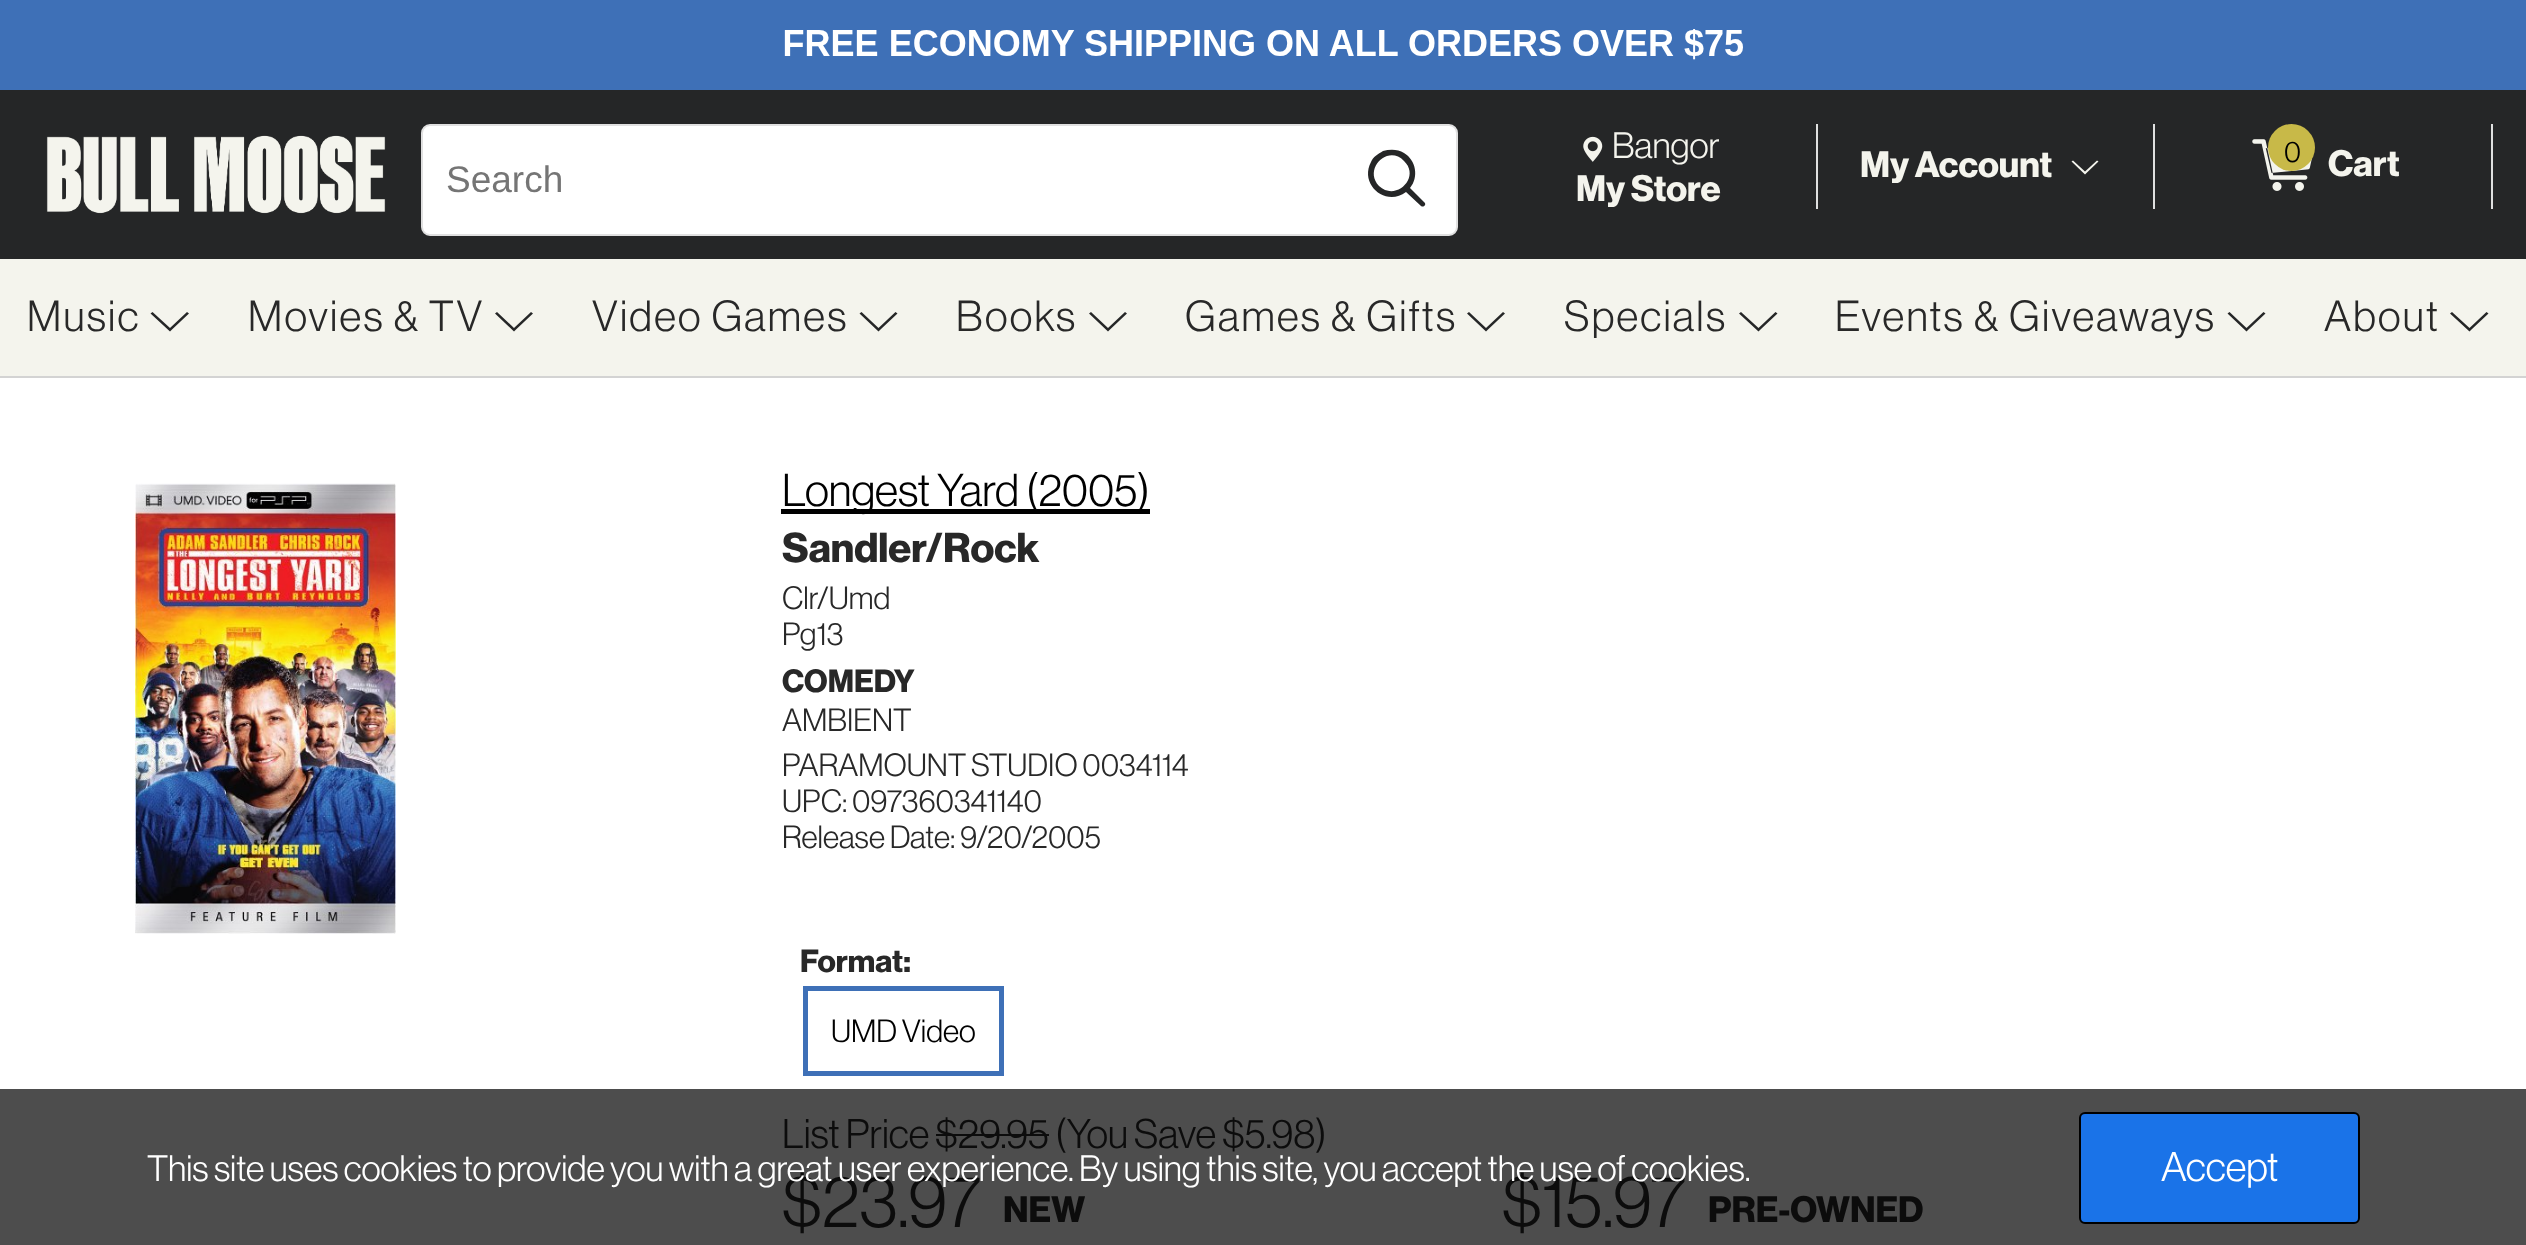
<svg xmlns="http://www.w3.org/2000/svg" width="2526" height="1245">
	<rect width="100%" height="100%" fill="#FFFFFF" />
	<rect x="0" y="1089" width="2526" height="156" fill="#4D4D4D" />
	<rect x="0" y="0" width="2526" height="90" fill="#3E70B7" />
	<image x="784" y="29" width="959" height="31" href="assets/img1.png" />
	<rect x="0" y="90" width="2526" height="169" fill="#252627" />
	<image x="46" y="135" width="340" height="79" href="assets/img2.png" />
	<rect x="422" y="125" width="1035" height="110" rx="8" fill="#FFFFFF" stroke="#E0E0E0" stroke-width="2" />
	<text x="446" y="192" font-family="Liberation Sans" font-size="37" fill="#757575">Search</text>
	<path d="M1424 202L1410 188C1419 177 1416 160 1404 153C1398 149 1390 149 1383 151C1378 154 1373 157 1371 162C1359 185 1386 207 1406 192L1421 206C1424 208 1427 204 1424 202ZM1379 186C1363 169 1388 144 1404 161C1421 177 1396 202 1379 186Z" fill="#252627" />
	<rect x="1816" y="124" width="2" height="85" fill="#E0E0E0" />
	<image x="1583" y="136" width="20" height="26" href="assets/img3.png" />
	<text x="1612" y="158" font-family="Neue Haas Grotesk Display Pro" font-size="36" fill="#F4F4ED">Bangor</text>
	<text x="1576" y="201" font-family="Neue Haas Grotesk Display Pro" font-size="36" font-weight="700" fill="#F4F4ED">My Store</text>
	<rect x="2153" y="124" width="2" height="85" fill="#E0E0E0" />
	<text x="1860" y="177" font-family="Neue Haas Grotesk Display Pro" font-size="36" font-weight="700" fill="#F4F4ED">My Account</text>
	<path d="M2086.5 173L2098.5 161.5L2097 160.5L2085 171.5L2073 160.5L2071.5 161.5L2085 174.5Z" fill="#F4F4ED" />
	<rect x="2491" y="124" width="2" height="85" fill="#E0E0E0" />
	<image x="2252" y="139" width="61" height="52" href="assets/img4.png" />
	<circle cx="2291.5" cy="147.5" r="23.5" fill="#C8B948" />
	<text x="2284" y="162" font-family="Neue Haas Grotesk Display Pro" font-size="29" fill="#000000">0</text>
	<text x="2328" y="176" font-family="Neue Haas Grotesk Display Pro" font-size="36" font-weight="700" fill="#F4F4ED">Cart</text>
	<rect x="0" y="259" width="2526" height="117" fill="#F4F4ED" />
	<text x="27" y="331" font-family="Neue Haas Grotesk Display Pro" font-size="42.5" letter-spacing="2.25" fill="#282828">Music</text>
	<path d="M172 329.5L189 313.5L187 312L170 328L152.5 312L150.5 313.5L170 331.5Z" fill="#252627" />
	<text x="248" y="331" font-family="Neue Haas Grotesk Display Pro" font-size="42.5" letter-spacing="2.25" fill="#282828">Movies &amp; TV</text>
	<path d="M516 329.5L533 313.5L531 312L514 328L497 312L495 313.5L514 331.5Z" fill="#252627" />
	<text x="592" y="331" font-family="Neue Haas Grotesk Display Pro" font-size="42.5" letter-spacing="2.25" fill="#282828">Video Games</text>
	<path d="M880.5 329.5L897.5 313.5L895.5 312L878.5 328L861.5 312L859.5 313.5L878.5 331.5Z" fill="#252627" />
	<text x="956" y="331" font-family="Neue Haas Grotesk Display Pro" font-size="42.5" letter-spacing="2.25" fill="#282828">Books</text>
	<path d="M1110 329.5L1127 313.5L1125 312L1108 328L1091 312L1089 313.5L1108 331.5Z" fill="#252627" />
	<text x="1185" y="331" font-family="Neue Haas Grotesk Display Pro" font-size="42.5" letter-spacing="2.25" fill="#282828">Games &amp; Gifts</text>
	<path d="M1488 329.5L1505 313.5L1503 312L1486 328L1469 312L1467 313.5L1486 331.5Z" fill="#252627" />
	<text x="1564" y="331" font-family="Neue Haas Grotesk Display Pro" font-size="42.5" letter-spacing="2.25" fill="#282828">Specials</text>
	<path d="M1760.5 329.5L1777.5 313.5L1775.5 312L1758.5 328L1741 312L1739 313.5L1758.5 331.5Z" fill="#252627" />
	<text x="1835" y="331" font-family="Neue Haas Grotesk Display Pro" font-size="42.5" letter-spacing="2.25" fill="#282828">Events &amp; Giveaways</text>
	<path d="M2248.5 329.5L2265.5 313.5L2263.5 312L2246.5 328L2229.5 312L2227.5 313.5L2246.5 331.5Z" fill="#252627" />
	<text x="2324" y="331" font-family="Neue Haas Grotesk Display Pro" font-size="42.5" letter-spacing="2.25" fill="#282828">About</text>
	<path d="M2471.5 329.5L2488.5 313.5L2486.5 312L2469.5 328L2452 312L2450 313.5L2469.5 331.5Z" fill="#252627" />
	<rect x="0" y="376" width="2526" height="2" fill="#D3D3D3" />
	<image x="135" y="483" width="261" height="451" href="assets/img5.png" />
	<rect x="781" y="509" width="369" height="5" fill="#000000" />
	<text x="782" y="506" font-family="Neue Haas Grotesk Display Pro" font-size="45" fill="#000000">Longest Yard (2005)</text>
	<text x="782" y="562" font-family="Neue Haas Grotesk Display Pro" font-size="41" font-weight="700" fill="#282828">Sandler/Rock</text>
	<g font-family="Neue Haas Grotesk Display Pro" font-size="31.5" fill="#282828">
		<text x="782" y="609">Clr/Umd</text>
		<text x="782" y="645">Pg13</text>
	</g>
	<text x="782" y="692" font-family="Neue Haas Grotesk Display Pro" font-size="31.5" font-weight="700" fill="#282828">COMEDY</text>
	<g font-family="Neue Haas Grotesk Display Pro" font-size="31.5" fill="#282828">
		<text x="782" y="731">AMBIENT</text>
		<text x="782" y="776">PARAMOUNT STUDIO 0034114</text>
		<text x="782" y="812">UPC: 097360341140</text>
		<text x="782" y="848">Release Date: 9/20/2005</text>
	</g>
	<text x="800" y="972" font-family="Neue Haas Grotesk Display Pro" font-size="31.5" font-weight="700" fill="#282828">Format:</text>
	<rect x="805.5" y="988.5" width="196" height="85" fill="none" stroke="#3E70B7" stroke-width="5" />
	<text x="831" y="1042" font-family="Neue Haas Grotesk Display Pro" font-size="31.5" fill="#000000">UMD Video</text>
	<g font-family="Neue Haas Grotesk Display Pro" font-size="40.5" fill="#0C0C0C">
		<text x="782" y="1148">List Price $29.95</text>
		<text x="1055" y="1148">(You Save $5.98)</text>
	</g>
	<rect x="936" y="1134" width="113" height="2" fill="#0C0C0C" />
	<text x="782" y="1227" font-family="Neue Haas Grotesk Display Pro" font-size="72" fill="#0C0C0C">$23.97</text>
	<text x="1003" y="1222" font-family="Neue Haas Grotesk Display Pro" font-size="36" font-weight="700" fill="#0C0C0C">NEW</text>
	<text x="1502" y="1227" font-family="Neue Haas Grotesk Display Pro" font-size="72" fill="#0C0C0C">$15.97</text>
	<text x="1708" y="1222" font-family="Neue Haas Grotesk Display Pro" font-size="36" font-weight="700" fill="#0C0C0C">PRE-OWNED</text>
	<text x="147" y="1181" font-family="Neue Haas Grotesk Display Pro" font-size="36" fill="#FFFFFF">This site uses cookies to provide you with a great user experience. By using this site, you accept the use of cookies.</text>
	<rect x="2080" y="1113" width="279" height="110" rx="5" fill="#1A73E8" stroke="#000000" stroke-width="2" />
	<text x="2161" y="1181" font-family="Neue Haas Grotesk Display Pro" font-size="40.5" fill="#FFFFFF">Accept</text>
</svg>
